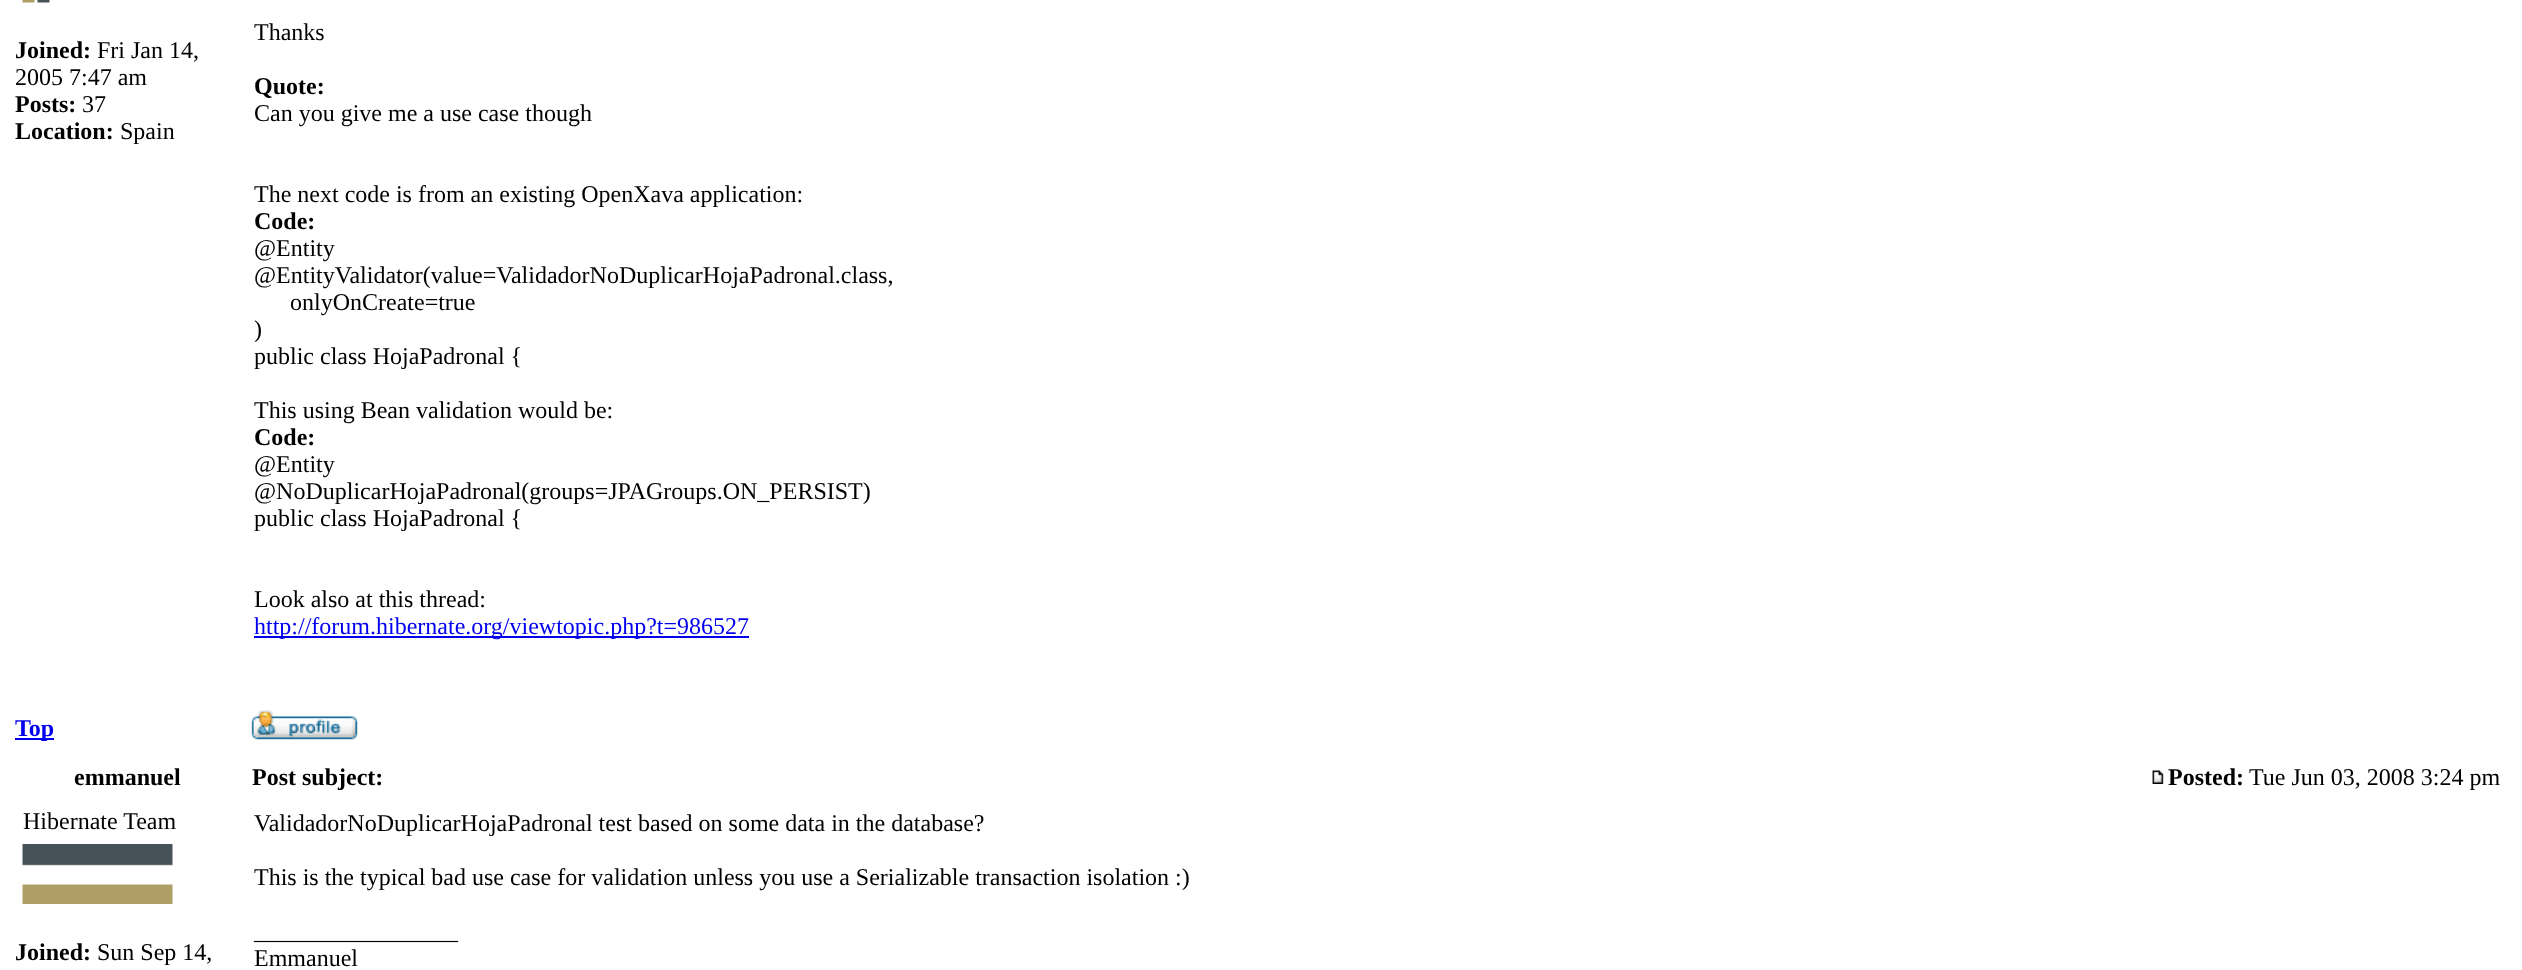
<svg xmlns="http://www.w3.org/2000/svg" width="2522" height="970">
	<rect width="100%" height="100%" fill="#FFFFFF" />
	<image x="22" y="0" width="28" height="3" href="assets/img1.png" />
	<text x="15" y="58" font-family="Liberation Serif" font-size="24" font-weight="700" fill="#000000">Joined:</text>
	<g font-family="Liberation Serif" font-size="24" fill="#000000">
		<text x="97" y="58">Fri Jan 14,</text>
		<text x="15" y="85">2005 7:47 am</text>
	</g>
	<text x="15" y="112" font-family="Liberation Serif" font-size="24" font-weight="700" fill="#000000">Posts:</text>
	<text x="82" y="112" font-family="Liberation Serif" font-size="24" fill="#000000">37</text>
	<text x="15" y="139" font-family="Liberation Serif" font-size="24" font-weight="700" fill="#000000">Location:</text>
	<g font-family="Liberation Serif" font-size="24" fill="#000000">
		<text x="120" y="139">Spain</text>
		<text x="254" y="40">Thanks</text>
	</g>
	<text x="254" y="94" font-family="Liberation Serif" font-size="24" font-weight="700" fill="#000000">Quote:</text>
	<g font-family="Liberation Serif" font-size="24" fill="#000000">
		<text x="254" y="121">Can you give me a use case though</text>
		<text x="254" y="202">The next code is from an existing OpenXava application:</text>
	</g>
	<text x="254" y="229" font-family="Liberation Serif" font-size="24" font-weight="700" fill="#000000">Code:</text>
	<g font-family="Liberation Serif" font-size="24" fill="#000000">
		<text x="254" y="256">@Entity</text>
		<text x="254" y="283">@EntityValidator(value=ValidadorNoDuplicarHojaPadronal.class,</text>
		<text x="290" y="310">onlyOnCreate=true</text>
		<text x="254" y="337">)</text>
		<text x="254" y="364">public class HojaPadronal {</text>
		<text x="254" y="418">This using Bean validation would be:</text>
	</g>
	<text x="254" y="445" font-family="Liberation Serif" font-size="24" font-weight="700" fill="#000000">Code:</text>
	<g font-family="Liberation Serif" font-size="24" fill="#000000">
		<text x="254" y="472">@Entity</text>
		<text x="254" y="499">@NoDuplicarHojaPadronal(groups=JPAGroups.ON_PERSIST)</text>
		<text x="254" y="526">public class HojaPadronal {</text>
		<text x="254" y="607">Look also at this thread:</text>
	</g>
	<rect x="254" y="636" width="495" height="2" fill="#0000EE" />
	<text x="254" y="634" font-family="Liberation Serif" font-size="24" fill="#0000EE">http://forum.hibernate.org/viewtopic.php?t=986527</text>
	<rect x="15" y="738" width="39" height="2" fill="#0000EE" />
	<text x="15" y="736" font-family="Liberation Serif" font-size="24" font-weight="700" fill="#0000EE">Top</text>
	<image x="251" y="710" width="107" height="30" href="assets/img2.png" />
	<g font-family="Liberation Serif" font-size="24" font-weight="700" fill="#000000">
		<text x="74" y="785">emmanuel</text>
		<text x="252" y="785">Post subject:</text>
	</g>
	<image x="2152" y="770" width="12" height="14" href="assets/img3.png" />
	<text x="2168" y="785" font-family="Liberation Serif" font-size="24" font-weight="700" fill="#000000">Posted:</text>
	<g font-family="Liberation Serif" font-size="24" fill="#000000">
		<text x="2249" y="785">Tue Jun 03, 2008 3:24 pm</text>
		<text x="23" y="829">Hibernate Team</text>
	</g>
	<image x="22" y="844" width="151" height="60" href="assets/img4.png" />
	<text x="15" y="960" font-family="Liberation Serif" font-size="24" font-weight="700" fill="#000000">Joined:</text>
	<g font-family="Liberation Serif" font-size="24" fill="#000000">
		<text x="97" y="960">Sun Sep 14,</text>
		<text x="254" y="831">ValidadorNoDuplicarHojaPadronal test based on some data in the database?</text>
		<text x="254" y="885">This is the typical bad use case for validation unless you use a Serializable transaction isolation :)</text>
		<text x="254" y="939">_________________</text>
		<text x="254" y="966">Emmanuel</text>
	</g>
</svg>
